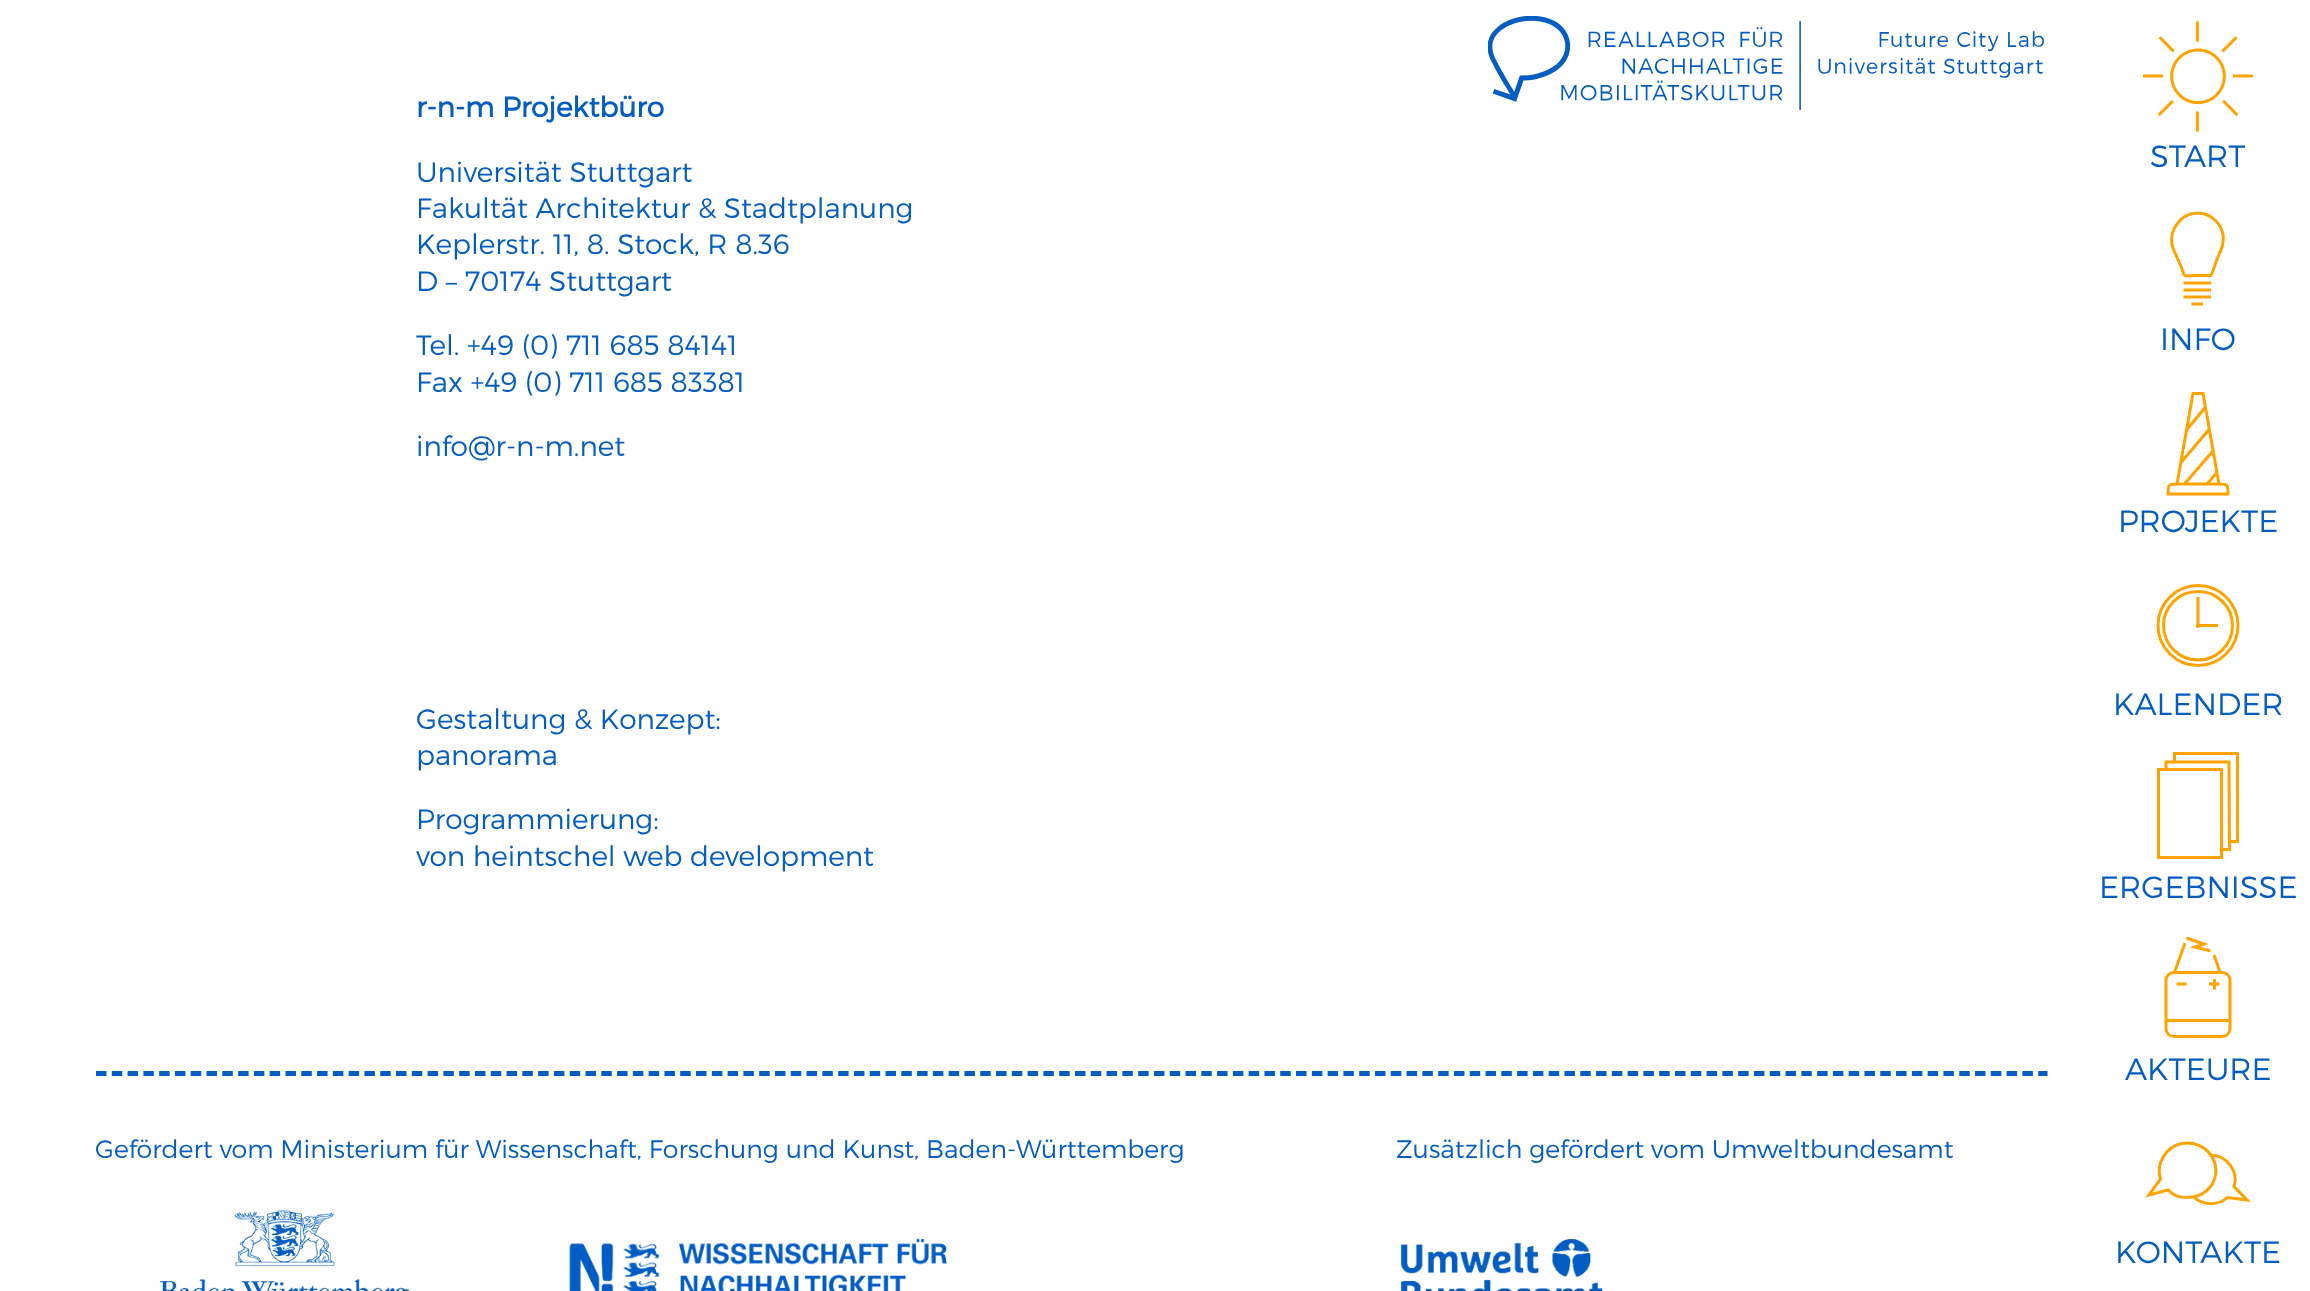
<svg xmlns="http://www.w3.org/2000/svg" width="2310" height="1291">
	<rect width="100%" height="100%" fill="#FFFFFF" />
	<image x="1488" y="16" width="556" height="94" href="assets/img1.png" />
	<text x="416" y="117" font-family="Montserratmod" font-size="28" font-weight="700" fill="#035DC2">r-n-m Projektbüro</text>
	<g font-family="Montserratmod" font-size="28" font-weight="300" fill="#035DC2">
		<text x="416" y="182">Universität Stuttgart</text>
		<text x="416" y="218">Fakultät Architektur &amp; Stadtplanung</text>
		<text x="416" y="254">Keplerstr. 11, 8. Stock, R 8.36</text>
		<text x="416" y="291">D – 70174 Stuttgart</text>
		<text x="416" y="355">Tel. +49 (0) 711 685 84141</text>
		<text x="416" y="392">Fax +49 (0) 711 685 83381</text>
		<text x="416" y="456">info@r-n-m.net</text>
		<text x="416" y="729">Gestaltung &amp; Konzept:</text>
		<text x="416" y="765">panorama</text>
		<text x="416" y="829">Programmierung:</text>
		<text x="416" y="866">von heintschel web development</text>
	</g>
	<path d="M96 1073.5H2047.5" fill="none" stroke="#035DC2" stroke-width="5.2" stroke-dasharray="10.5 5.29" />
	<text x="95" y="1158" font-family="Montserratmod" font-size="25.2" font-weight="300" fill="#035DC2">Gefördert vom Ministerium für Wissenschaft, Forschung und Kunst, Baden-Württemberg</text>
	<image x="159" y="1210" width="251" height="81" href="assets/img2.png" />
	<image x="569" y="1238" width="378" height="53" href="assets/img3.png" />
	<text x="1396" y="1158" font-family="Montserratmod" font-size="25.2" font-weight="300" fill="#035DC2">Zusätzlich gefördert vom Umweltbundesamt</text>
	<image x="1400" y="1239" width="203" height="52" href="assets/img4.png" />
	<image x="2142" y="21" width="112" height="111" href="assets/img5.png" />
	<text x="2150" y="167" font-family="Montserratmod" font-size="30.75" font-weight="300" fill="#035DC2">START</text>
	<path d="M2183.5 283H2211M2183.5 290H2211M2183.5 297H2211M2191.5 304H2203" fill="none" stroke="#FFA300" stroke-width="3" />
	<path d="M2197.5 213C2204.5 213 2211 216 2216 221C2219.5 224.5 2222 229.5 2223 234.5C2224.5 245 2219.5 252.5 2216 262C2215 264.5 2212.5 274 2210.5 275.5H2197.5C2183.5 275.5 2185 279 2181.5 267.5L2173.5 249.5C2167 233 2179 213.5 2197.5 213Z" fill="none" stroke="#FFA300" stroke-width="3" />
	<text x="2160" y="350" font-family="Montserratmod" font-size="30.75" font-weight="300" fill="#035DC2">INFO</text>
	<path d="M2219 484L2203 393.5H2193L2177 484M2207 484L2217 472.5M2184.5 484L2213 451M2181 462.5L2209 429.5M2187 429.5L2205.5 407M2228 494C2228 483 2227.5 484 2215 484H2181C2169 484 2168 483 2168 494Z" fill="none" stroke="#FFA300" stroke-width="3" />
	<text x="2118" y="532" font-family="Montserratmod" font-size="30.75" font-weight="300" fill="#035DC2">PROJEKTE</text>
	<path d="M2198 660C2217 660 2232.5 644.5 2232.5 625.5C2232.5 606.5 2217 591.5 2198 591.5C2179 591.5 2163.5 606.5 2163.5 625.5C2163.5 644.5 2179 660 2198 660Z" fill="none" stroke="#FFA300" stroke-width="3" />
	<path d="M2198 628C2201 628 2201 623.5 2198 623.5C2195 623.5 2195 628 2198 628Z" fill="#FFA300" />
	<path d="M2198 597V626" fill="none" stroke="#FFA300" stroke-width="3" />
	<rect x="2199" y="624" width="19" height="3" fill="#FFA300" />
	<circle cx="2198" cy="625.5" r="40" fill="none" stroke="#FFA300" stroke-width="3" />
	<text x="2113" y="715" font-family="Montserratmod" font-size="30.75" font-weight="300" fill="#035DC2">KALENDER</text>
	<rect x="2174.5" y="753.5" width="63" height="88" fill="none" stroke="#FFA300" stroke-width="3" />
	<path d="M2167 850H2230L2229 762H2166Z" fill="#FFFFFF" />
	<path d="M2166.5 849.5H2229.5L2229 762H2166Z" fill="none" stroke="#FFA300" stroke-width="3" />
	<rect x="2164" y="771" width="56" height="80" fill="#FFFFFF" />
	<rect x="2158.5" y="769.5" width="63" height="88" fill="none" stroke="#FFA300" stroke-width="3" />
	<text x="2099" y="898" font-family="Montserratmod" font-size="30.75" font-weight="300" fill="#035DC2">ERGEBNISSE</text>
	<path d="M2230 980C2230 976 2226.5 972.5 2222.5 972.5H2174C2169.5 972.5 2166 976 2166 980V1028.5C2166 1033 2169.5 1036.5 2174 1036.5H2222C2226.5 1036.5 2230 1033 2230 1028.5ZM2166 1020.5H2229.5M2176.5 984H2186.5M2174.5 972.5L2185 943M2220 972L2214 955M2209 984H2219.5M2214.5 989.5V979" fill="none" stroke="#FFA300" stroke-width="3" />
	<path d="M2186.5 938L2204 944L2195 947L2210.5 951" fill="none" stroke="#FFA300" stroke-width="3" />
	<text x="2125" y="1080" font-family="Montserratmod" font-size="30.75" font-weight="300" fill="#035DC2">AKTEURE</text>
	<path d="M2160.5 1179C2155.5 1164 2166 1146.5 2182 1143.5C2205.5 1139 2225.5 1164.5 2211 1186C2205.5 1193.5 2197 1197.5 2187.5 1197.5C2180.5 1198 2173 1195 2168 1190L2149 1195ZM2211 1155C2226.5 1155.5 2239 1171 2234 1186.5L2247 1200L2227.5 1197.5C2218 1206 2203 1205.5 2193.5 1197" fill="none" stroke="#FFA300" stroke-width="3" />
	<text x="2115" y="1263" font-family="Montserratmod" font-size="30.75" font-weight="300" fill="#035DC2">KONTAKTE</text>
</svg>
